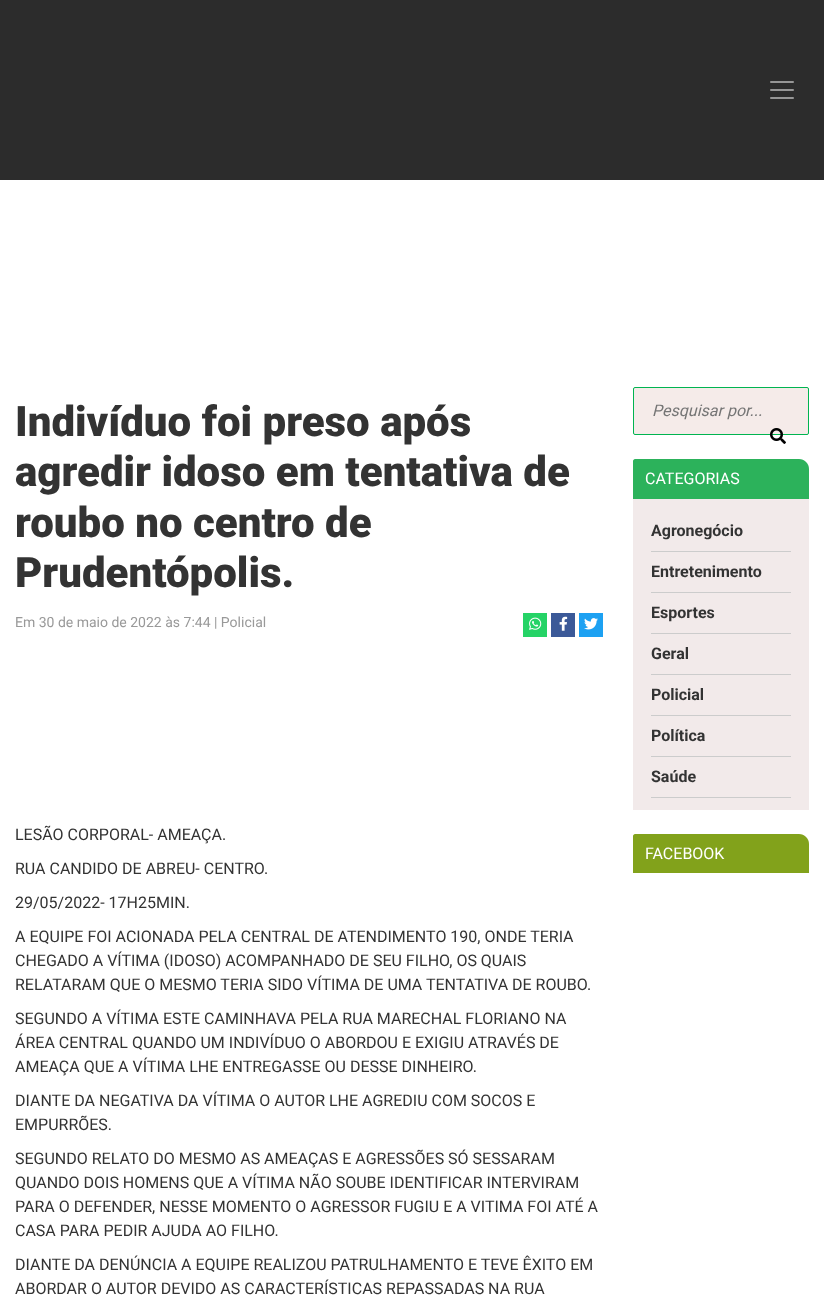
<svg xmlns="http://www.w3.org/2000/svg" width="824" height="1300">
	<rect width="100%" height="100%" fill="#FFFFFF" />
	<rect x="0" y="0" width="824" height="180" fill="#2C2C2C" />
	<image x="770" y="81" width="24" height="18" href="assets/img1.png" />
	<g font-family="Roboto" font-size="42" font-weight="900" fill="#333333">
		<text x="15" y="436">Indivíduo foi preso após</text>
		<text x="15" y="486">agredir idoso em tentativa de</text>
		<text x="15" y="537">roubo no centro de</text>
		<text x="15" y="587">Prudentópolis.</text>
	</g>
	<text x="15" y="627" font-family="Roboto" font-size="14" fill="#999999">Em 30 de maio de 2022 às 7:44 | Policial</text>
	<rect x="523" y="613" width="24" height="24" fill="#25D366" />
	<image x="529" y="617" width="13" height="13" href="assets/img2.png" />
	<rect x="551" y="613" width="24" height="24" fill="#3B5998" />
	<image x="559" y="616" width="9" height="15" href="assets/img3.png" />
	<rect x="579" y="613" width="24" height="24" fill="#1DA1F2" />
	<image x="584" y="618" width="14" height="12" href="assets/img4.png" />
	<g font-family="Roboto" font-size="16" fill="#333333">
		<text x="15" y="840">LESÃO CORPORAL- AMEAÇA.</text>
		<text x="15" y="874">RUA CANDIDO DE ABREU- CENTRO.</text>
		<text x="15" y="908">29/05/2022- 17H25MIN.</text>
		<text x="15" y="942">A EQUIPE FOI ACIONADA PELA CENTRAL DE ATENDIMENTO 190, ONDE TERIA</text>
		<text x="15" y="966">CHEGADO A VÍTIMA (IDOSO) ACOMPANHADO DE SEU FILHO, OS QUAIS</text>
		<text x="15" y="990">RELATARAM QUE O MESMO TERIA SIDO VÍTIMA DE UMA TENTATIVA DE ROUBO.</text>
		<text x="15" y="1024">SEGUNDO A VÍTIMA ESTE CAMINHAVA PELA RUA MARECHAL FLORIANO NA</text>
		<text x="15" y="1048">ÁREA CENTRAL QUANDO UM INDIVÍDUO O ABORDOU E EXIGIU ATRAVÉS DE</text>
		<text x="15" y="1072">AMEAÇA QUE A VÍTIMA LHE ENTREGASSE OU DESSE DINHEIRO.</text>
		<text x="15" y="1106">DIANTE DA NEGATIVA DA VÍTIMA O AUTOR LHE AGREDIU COM SOCOS E</text>
		<text x="15" y="1130">EMPURRÕES.</text>
		<text x="15" y="1164">SEGUNDO RELATO DO MESMO AS AMEAÇAS E AGRESSÕES SÓ SESSARAM</text>
		<text x="15" y="1188">QUANDO DOIS HOMENS QUE A VÍTIMA NÃO SOUBE IDENTIFICAR INTERVIRAM</text>
		<text x="15" y="1212">PARA O DEFENDER, NESSE MOMENTO O AGRESSOR FUGIU E A VITIMA FOI ATÉ A</text>
		<text x="15" y="1236">CASA PARA PEDIR AJUDA AO FILHO.</text>
		<text x="15" y="1270">DIANTE DA DENÚNCIA A EQUIPE REALIZOU PATRULHAMENTO E TEVE ÊXITO EM</text>
		<text x="15" y="1294">ABORDAR O AUTOR DEVIDO AS CARACTERÍSTICAS REPASSADAS NA RUA</text>
	</g>
	<rect x="633.5" y="387.5" width="175" height="47" rx="1.5" fill="#F5EBE9" stroke="#00B450" />
	<text x="652" y="416" font-family="Roboto" font-size="16" font-style="italic" fill="#757575">Pesquisar por...</text>
	<image x="770" y="428" width="16" height="16" href="assets/img5.png" />
	<path d="M635 459H799C804.5 459 809 463.5 809 469V499H633V461C633 460 634 459 635 459Z" fill="#2CB25B" />
	<text x="645" y="484" font-family="Roboto" font-size="16" fill="#FFFFFF">CATEGORIAS</text>
	<rect x="633" y="499" width="176" height="311" fill="#F2EAEA" />
	<rect x="651" y="551" width="140" height="1" fill="#CCCCCC" />
	<text x="651" y="536" font-family="Roboto" font-size="16" font-weight="700" fill="#333333">Agronegócio</text>
	<rect x="651" y="592" width="140" height="1" fill="#CCCCCC" />
	<text x="651" y="577" font-family="Roboto" font-size="16" font-weight="700" fill="#333333">Entretenimento</text>
	<rect x="651" y="633" width="140" height="1" fill="#CCCCCC" />
	<text x="651" y="618" font-family="Roboto" font-size="16" font-weight="700" fill="#333333">Esportes</text>
	<rect x="651" y="674" width="140" height="1" fill="#CCCCCC" />
	<text x="651" y="659" font-family="Roboto" font-size="16" font-weight="700" fill="#333333">Geral</text>
	<rect x="651" y="715" width="140" height="1" fill="#CCCCCC" />
	<text x="651" y="700" font-family="Roboto" font-size="16" font-weight="700" fill="#333333">Policial</text>
	<rect x="651" y="756" width="140" height="1" fill="#CCCCCC" />
	<text x="651" y="741" font-family="Roboto" font-size="16" font-weight="700" fill="#333333">Política</text>
	<rect x="651" y="797" width="140" height="1" fill="#CCCCCC" />
	<text x="651" y="782" font-family="Roboto" font-size="16" font-weight="700" fill="#333333">Saúde</text>
	<path d="M635 834H799C804.5 834 809 838.5 809 844V873H633V836C633 835 634 834 635 834Z" fill="#82A21B" />
	<text x="645" y="859" font-family="Roboto" font-size="16" fill="#FFFFFF">FACEBOOK</text>
</svg>
